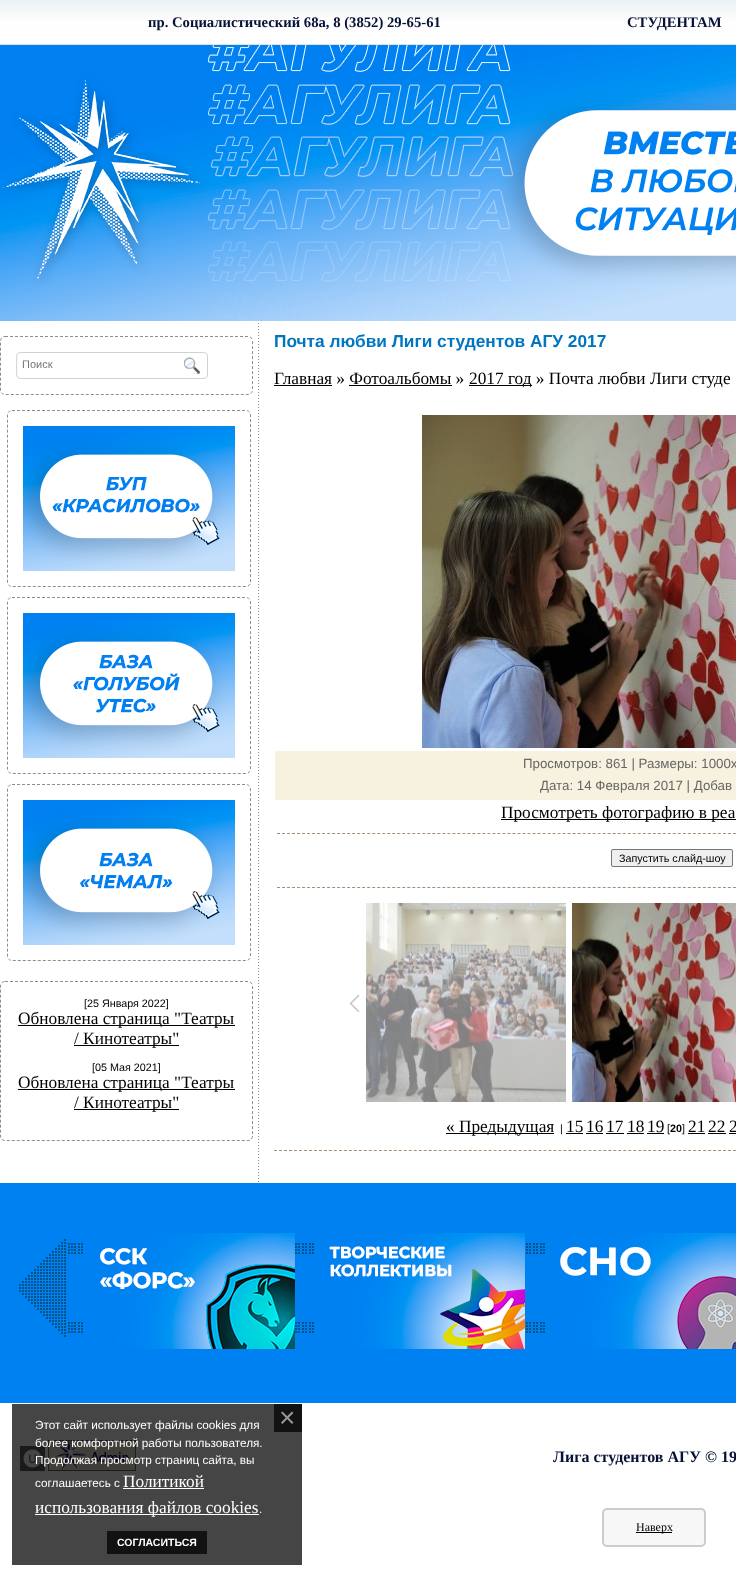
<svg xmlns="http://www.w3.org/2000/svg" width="736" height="1577">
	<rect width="100%" height="100%" fill="#FFFFFF" />
	<rect x="12" y="1404" width="290" height="161" fill="#454545" />
	<image x="0" y="0" width="736" height="45" href="assets/img1.png" />
	<g font-family="Liberation Serif" font-size="14.7" font-weight="700" fill="#061236">
		<text x="148" y="27">пр. Социалистический 68а, 8 (3852) 29-65-61</text>
		<text x="627" y="27">СТУДЕНТАМ</text>
	</g>
	<image x="0" y="45" width="736" height="276" href="assets/img2.png" />
	<path d="M5 336.5H248C250.5 336.5 252.5 338.5 252.5 341V390C252.5 392.5 250.5 394.5 248 394.5H5C2.5 394.5 .5 392.5 .5 390V341C.5 338.5 2.5 336.5 5 336.5Z" fill="none" stroke="#8D8D8D" stroke-dasharray="3 2" />
	<image x="16" y="352" width="192" height="27" href="assets/img3.png" />
	<text x="22" y="368" font-family="Liberation Sans" font-size="11" fill="#757575">Поиск</text>
	<path d="M12 410.5H246C248.5 410.5 250.5 412.5 250.5 415V582C250.5 584.5 248.5 586.5 246 586.5H12C9.5 586.5 7.5 584.5 7.5 582V415C7.5 412.5 9.5 410.5 12 410.5Z" fill="none" stroke="#8D8D8D" stroke-dasharray="3 2" />
	<image x="23" y="426" width="212" height="145" href="assets/img4.png" />
	<path d="M12 597.5H246C248.5 597.5 250.5 599.5 250.5 602V769C250.5 771.5 248.5 773.5 246 773.5H12C9.5 773.5 7.5 771.5 7.5 769V602C7.5 599.5 9.5 597.5 12 597.5Z" fill="none" stroke="#8D8D8D" stroke-dasharray="3 2" />
	<image x="23" y="613" width="212" height="145" href="assets/img5.png" />
	<path d="M12 784.5H246C248.5 784.5 250.5 786.5 250.5 789V956C250.5 958.5 248.5 960.5 246 960.5H12C9.5 960.5 7.5 958.5 7.5 956V789C7.5 786.5 9.5 784.5 12 784.5Z" fill="none" stroke="#8D8D8D" stroke-dasharray="3 2" />
	<image x="23" y="800" width="212" height="145" href="assets/img6.png" />
	<path d="M5 981.5H248C250.5 981.5 252.5 983.5 252.5 986V1136C252.5 1138.5 250.5 1140.5 248 1140.5H5C2.5 1140.5 .5 1138.5 .5 1136V986C.5 983.5 2.5 981.5 5 981.5Z" fill="none" stroke="#8D8D8D" stroke-dasharray="3 2" />
	<text x="84" y="1007" font-family="Liberation Sans" font-size="10.75" fill="#000000">[25 Января 2022]</text>
	<rect x="18" y="1025" width="217" height="1" fill="#000000" />
	<text x="18" y="1024" font-family="Liberation Serif" font-size="17.3" fill="#000000">Обновлена страница "Театры</text>
	<rect x="74" y="1045" width="105" height="1" fill="#000000" />
	<text x="74" y="1044" font-family="Liberation Serif" font-size="17.3" fill="#000000">/ Кинотеатры"</text>
	<text x="92" y="1071" font-family="Liberation Sans" font-size="10.75" fill="#000000">[05 Мая 2021]</text>
	<rect x="18" y="1089" width="217" height="1" fill="#000000" />
	<text x="18" y="1088" font-family="Liberation Serif" font-size="17.3" fill="#000000">Обновлена страница "Театры</text>
	<rect x="74" y="1109" width="105" height="1" fill="#000000" />
	<text x="74" y="1108" font-family="Liberation Serif" font-size="17.3" fill="#000000">/ Кинотеатры"</text>
	<image x="258" y="323" width="1" height="859" href="assets/img7.png" />
	<text x="274" y="347" font-family="Liberation Sans" font-size="17.3" font-weight="700" fill="#0076C0">Почта любви Лиги студентов АГУ 2017</text>
	<text x="274" y="384" font-family="Liberation Serif" font-size="17.3" fill="#000000">Главная » Фотоальбомы »</text>
	<rect x="274" y="385" width="58" height="1" fill="#000000" />
	<rect x="469" y="385" width="63" height="1" fill="#000000" />
	<text x="469" y="384" font-family="Liberation Serif" font-size="17.3" fill="#000000">2017 год » Почта любви Лиги студе</text>
	<rect x="349" y="385" width="103" height="1" fill="#000000" />
	<image x="422" y="415" width="314" height="333" href="assets/img8.png" />
	<rect x="275" y="751" width="461" height="49" fill="#F7F2DF" />
	<g font-family="Liberation Sans" font-size="13.3" fill="#666666">
		<text x="523" y="768">Просмотров: 861 | Размеры: 1000x</text>
		<text x="540" y="790">Дата: 14 Февраля 2017 | Добав</text>
	</g>
	<rect x="501" y="819" width="235" height="1" fill="#000000" />
	<text x="501" y="818" font-family="Liberation Serif" font-size="17.3" fill="#000000">Просмотреть фотографию в реа</text>
	<path d="M277 833.5H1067" fill="none" stroke="#A48F76" stroke-dasharray="3 2.01" />
	<rect x="611.5" y="849.5" width="121" height="17" rx="1.5" fill="#EFEFEF" stroke="#767676" />
	<text x="619" y="862" font-family="Liberation Sans" font-size="10.75" fill="#000000">Запустить слайд-шоу</text>
	<path d="M277 887.5H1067" fill="none" stroke="#A48F76" stroke-dasharray="3 2.01" />
	<image x="349" y="995" width="11" height="17" href="assets/img9.png" />
	<image x="366" y="903" width="200" height="199" href="assets/img10.png" />
	<image x="572" y="903" width="164" height="199" href="assets/img11.png" />
	<rect x="446" y="1133" width="108" height="1" fill="#000000" />
	<text x="446" y="1132" font-family="Liberation Serif" font-size="17.3" fill="#000000">« Предыдущая</text>
	<text x="560" y="1132" font-family="Liberation Sans" font-size="10.75" fill="#000000">|</text>
	<text x="566" y="1132" font-family="Liberation Serif" font-size="17.3" fill="#000000">15</text>
	<rect x="566" y="1133" width="17" height="1" fill="#000000" />
	<text x="586" y="1132" font-family="Liberation Serif" font-size="17.3" fill="#000000">16</text>
	<rect x="586" y="1133" width="17" height="1" fill="#000000" />
	<text x="606" y="1132" font-family="Liberation Serif" font-size="17.3" fill="#000000">17</text>
	<rect x="606" y="1133" width="18" height="1" fill="#000000" />
	<text x="627" y="1132" font-family="Liberation Serif" font-size="17.3" fill="#000000">18</text>
	<rect x="627" y="1133" width="17" height="1" fill="#000000" />
	<text x="647" y="1132" font-family="Liberation Serif" font-size="17.3" fill="#000000">19</text>
	<rect x="647" y="1133" width="17" height="1" fill="#000000" />
	<text x="667" y="1132" font-family="Liberation Sans" font-size="10.75" fill="#000000">[</text>
	<text x="670" y="1132" font-family="Liberation Sans" font-size="10.75" font-weight="700" fill="#000000">20</text>
	<text x="682" y="1132" font-family="Liberation Sans" font-size="10.75" fill="#000000">]</text>
	<text x="688" y="1132" font-family="Liberation Serif" font-size="17.3" fill="#000000">21</text>
	<rect x="688" y="1133" width="17" height="1" fill="#000000" />
	<text x="708" y="1132" font-family="Liberation Serif" font-size="17.3" fill="#000000">22</text>
	<rect x="708" y="1133" width="18" height="1" fill="#000000" />
	<text x="729" y="1132" font-family="Liberation Serif" font-size="17.3" fill="#000000">2</text>
	<rect x="729" y="1133" width="7" height="1" fill="#000000" />
	<path d="M274 1150.5H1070" fill="none" stroke="#A48F76" stroke-dasharray="3 1.99" />
	<rect x="0" y="1183" width="736" height="220" fill="#0081F1" />
	<image x="71" y="1243" width="474" height="90" href="assets/img12.png" />
	<image x="19" y="1239" width="51" height="98" href="assets/img13.png" />
	<image x="85" y="1233" width="210" height="116" href="assets/img14.png" />
	<image x="316" y="1233" width="209" height="116" href="assets/img15.png" />
	<image x="547" y="1233" width="189" height="116" href="assets/img16.png" />
	<image x="20" y="1446" width="25" height="25" href="assets/img17.png" />
	<image x="48" y="1440" width="88" height="31" href="assets/img18.png" />
	<text x="553" y="1462" font-family="Liberation Serif" font-size="16" font-weight="700" fill="#061236">Лига студентов АГУ © 19</text>
	<rect x="603" y="1509" width="102" height="37" rx="4" fill="#F7F7F7" stroke="#CCCCCC" stroke-width="2" />
	<rect x="636" y="1532" width="36" height="1" fill="#000000" />
	<text x="636" y="1531" font-family="Liberation Serif" font-size="12" fill="#000000">Наверх</text>
	<rect x="274" y="1404" width="28" height="28" fill="#121212" />
	<text x="279" y="1427" font-family="Liberation Sans" font-size="28" fill="#999999">×</text>
	<rect x="107" y="1531" width="100" height="23" fill="#121212" />
	<text x="117" y="1546" font-family="Liberation Sans" font-size="10.5" font-weight="700" fill="#FFFFFF">СОГЛАСИТЬСЯ</text>
	<g font-family="Liberation Sans" font-size="11.75" fill="#FFFFFF">
		<text x="35" y="1429">Этот сайт использует файлы cookies для</text>
		<text x="35" y="1447">более комфортной работы пользователя.</text>
		<text x="35" y="1464">Продолжая просмотр страниц сайта, вы</text>
		<text x="35" y="1487">соглашаетесь с</text>
	</g>
	<text x="123" y="1487" font-family="Liberation Serif" font-size="17.3" fill="#FFFFFF">Политикой</text>
	<rect x="123" y="1488" width="81" height="1" fill="#FFFFFF" />
	<rect x="35" y="1514" width="224" height="1" fill="#FFFFFF" />
	<text x="35" y="1513" font-family="Liberation Serif" font-size="17.3" fill="#FFFFFF">использования файлов cookies</text>
	<text x="259" y="1513" font-family="Liberation Sans" font-size="11.75" fill="#FFFFFF">.</text>
</svg>
